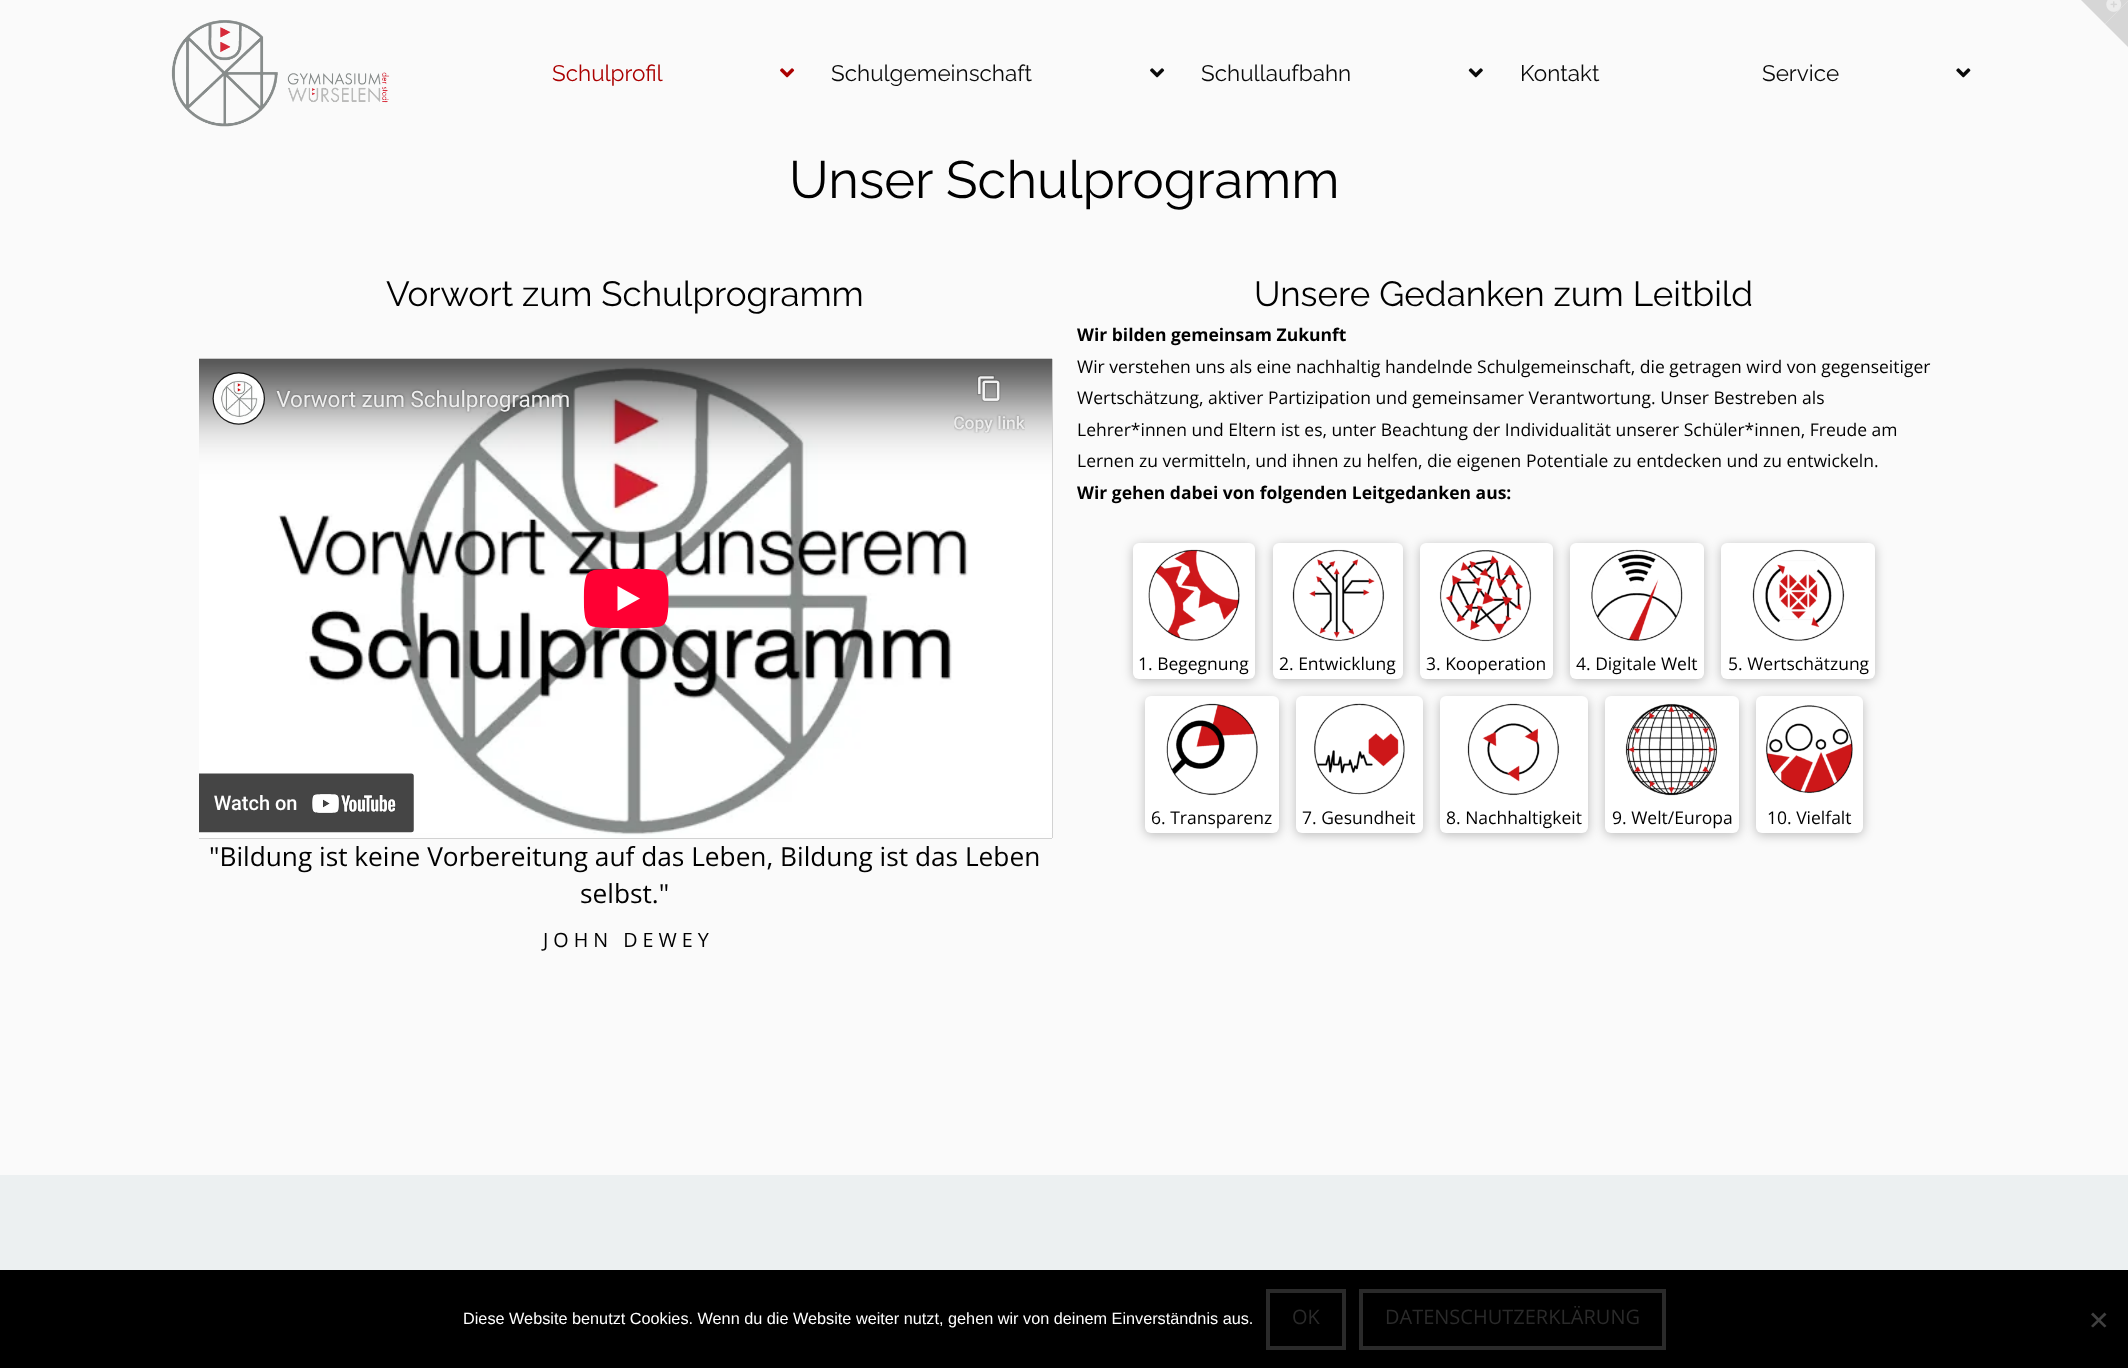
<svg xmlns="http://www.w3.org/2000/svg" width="2128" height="1368">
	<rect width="100%" height="100%" fill="#FAFAFA" />
	<path d="M2081 0H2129L2105 24Z" fill="#D6D6D6" />
	<path d="M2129 0V48L2105 24Z" fill="#D6D6D6" />
	<image x="2106" y="0" width="16" height="12" href="assets/img1.png" />
	<image x="171" y="20" width="219" height="107" href="assets/img2.png" />
	<text x="552" y="81" font-family="Raleway" font-size="22.5" fill="#AA0000">Schulprofil</text>
	<image x="780" y="68" width="15" height="10" href="assets/img3.png" />
	<text x="831" y="81" font-family="Raleway" font-size="22.5" fill="#0A0A0A">Schulgemeinschaft</text>
	<image x="1150" y="68" width="15" height="10" href="assets/img4.png" />
	<text x="1201" y="81" font-family="Raleway" font-size="22.5" fill="#0A0A0A">Schullaufbahn</text>
	<image x="1468" y="68" width="15" height="10" href="assets/img5.png" />
	<g font-family="Raleway" font-size="22.5" fill="#0A0A0A">
		<text x="1520" y="81">Kontakt</text>
		<text x="1762" y="81">Service</text>
	</g>
	<image x="1956" y="68" width="15" height="10" href="assets/img6.png" />
	<text x="789" y="198" font-family="Raleway" font-size="52.5" fill="#000000">Unser Schulprogramm</text>
	<text x="386" y="306" font-family="Raleway" font-size="35" fill="#000000">Vorwort zum Schulprogramm</text>
	<rect x="199" y="359" width="854" height="480" fill="#FFFFFF" />
	<image x="199" y="358" width="854" height="481" href="assets/img7.png" />
	<g font-family="Open Sans" font-size="26.25" fill="#000000">
		<text x="209" y="866">"Bildung ist keine Vorbereitung auf das Leben, Bildung ist das Leben</text>
		<text x="580" y="903">selbst."</text>
	</g>
	<text x="543" y="947" font-family="Open Sans" font-size="19.75" letter-spacing="5" fill="#000000">JOHN DEWEY</text>
	<text x="1254" y="306" font-family="Raleway" font-size="35" fill="#000000">Unsere Gedanken zum Leitbild</text>
	<text x="1077" y="341" font-family="Open Sans" font-size="17.5" font-weight="700" fill="#000000">Wir bilden gemeinsam Zukunft</text>
	<g font-family="Open Sans" font-size="17.5" fill="#000000">
		<text x="1077" y="373">Wir verstehen uns als eine nachhaltig handelnde Schulgemeinschaft, die getragen wird von gegenseitiger</text>
		<text x="1077" y="404">Wertschätzung, aktiver Partizipation und gemeinsamer Verantwortung. Unser Bestreben als</text>
		<text x="1077" y="436">Lehrer*innen und Eltern ist es, unter Beachtung der Individualität unserer Schüler*innen, Freude am</text>
		<text x="1077" y="467">Lernen zu vermitteln, und ihnen zu helfen, die eigenen Potentiale zu entdecken und zu entwickeln.</text>
	</g>
	<text x="1077" y="499" font-family="Open Sans" font-size="17.5" font-weight="700" fill="#000000">Wir gehen dabei von folgenden Leitgedanken aus:</text>
	<rect x="1133" y="545" width="122" height="136" rx="6" fill="#000000" fill-opacity="0.25" filter="blur(5.5px)" />
	<rect x="1133" y="543" width="122" height="136" rx="6" fill="#FFFFFF" />
	<image x="1148" y="549" width="92" height="92" href="assets/img8.png" />
	<text x="1138" y="670" font-family="Open Sans" font-size="17.5" fill="#000000">1. Begegnung</text>
	<rect x="1273" y="545" width="130" height="136" rx="6" fill="#000000" fill-opacity="0.25" filter="blur(5.5px)" />
	<rect x="1273" y="543" width="130" height="136" rx="6" fill="#FFFFFF" />
	<image x="1292" y="549" width="93" height="92" href="assets/img9.png" />
	<text x="1279" y="670" font-family="Open Sans" font-size="17.5" fill="#000000">2. Entwicklung</text>
	<rect x="1420" y="545" width="133" height="136" rx="6" fill="#000000" fill-opacity="0.25" filter="blur(5.5px)" />
	<rect x="1420" y="543" width="133" height="136" rx="6" fill="#FFFFFF" />
	<image x="1439" y="550" width="93" height="92" href="assets/img10.png" />
	<text x="1426" y="670" font-family="Open Sans" font-size="17.5" fill="#000000">3. Kooperation</text>
	<rect x="1570" y="545" width="134" height="136" rx="6" fill="#000000" fill-opacity="0.25" filter="blur(5.5px)" />
	<rect x="1570" y="543" width="134" height="136" rx="6" fill="#FFFFFF" />
	<image x="1591" y="549" width="92" height="92" href="assets/img11.png" />
	<text x="1576" y="670" font-family="Open Sans" font-size="17.5" fill="#000000">4. Digitale Welt</text>
	<rect x="1721" y="545" width="154" height="136" rx="6" fill="#000000" fill-opacity="0.25" filter="blur(5.5px)" />
	<rect x="1721" y="543" width="154" height="136" rx="6" fill="#FFFFFF" />
	<image x="1752" y="549" width="93" height="92" href="assets/img12.png" />
	<text x="1728" y="670" font-family="Open Sans" font-size="17.5" fill="#000000">5. Wertschätzung</text>
	<rect x="1145" y="699" width="134" height="136" rx="6" fill="#000000" fill-opacity="0.25" filter="blur(5.5px)" />
	<rect x="1145" y="696" width="134" height="137" rx="6" fill="#FFFFFF" />
	<image x="1166" y="703" width="92" height="93" href="assets/img13.png" />
	<text x="1151" y="824" font-family="Open Sans" font-size="17.5" fill="#000000">6. Transparenz</text>
	<rect x="1296" y="699" width="127" height="136" rx="6" fill="#000000" fill-opacity="0.25" filter="blur(5.5px)" />
	<rect x="1296" y="696" width="127" height="137" rx="6" fill="#FFFFFF" />
	<image x="1314" y="703" width="91" height="92" href="assets/img14.png" />
	<text x="1302" y="824" font-family="Open Sans" font-size="17.5" fill="#000000">7. Gesundheit</text>
	<rect x="1440" y="699" width="148" height="136" rx="6" fill="#000000" fill-opacity="0.25" filter="blur(5.5px)" />
	<rect x="1440" y="696" width="148" height="137" rx="6" fill="#FFFFFF" />
	<image x="1467" y="703" width="93" height="93" href="assets/img15.png" />
	<text x="1446" y="824" font-family="Open Sans" font-size="17.5" fill="#000000">8. Nachhaltigkeit</text>
	<rect x="1605" y="699" width="134" height="136" rx="6" fill="#000000" fill-opacity="0.25" filter="blur(5.5px)" />
	<rect x="1605" y="696" width="134" height="137" rx="6" fill="#FFFFFF" />
	<image x="1625" y="703" width="93" height="93" href="assets/img16.png" />
	<text x="1612" y="824" font-family="Open Sans" font-size="17.5" fill="#000000">9. Welt/Europa</text>
	<rect x="1756" y="699" width="107" height="136" rx="6" fill="#000000" fill-opacity="0.25" filter="blur(5.5px)" />
	<rect x="1756" y="696" width="107" height="137" rx="6" fill="#FFFFFF" />
	<image x="1765" y="705" width="88" height="89" href="assets/img17.png" />
	<text x="1767" y="824" font-family="Open Sans" font-size="17.5" fill="#000000">10. Vielfalt</text>
	<rect x="0" y="1175" width="2128" height="95" fill="#ECF0F1" />
	<rect x="0" y="1270" width="2128" height="98" fill="#000000" />
	<text x="463" y="1324" font-family="Liberation Sans" font-size="16.25" fill="#FFFFFF">Diese Website benutzt Cookies. Wenn du die Website weiter nutzt, gehen wir von deinem Einverständnis aus.</text>
	<rect x="1268" y="1291" width="76" height="57" fill="none" stroke="#2A2A2A" stroke-width="4" />
	<text x="1292" y="1324" font-family="Open Sans" font-size="20" fill="#2A2A2A">OK</text>
	<rect x="1361" y="1291" width="303" height="57" fill="none" stroke="#2A2A2A" stroke-width="4" />
	<text x="1385" y="1324" font-family="Open Sans" font-size="20" fill="#2A2A2A">DATENSCHUTZERKLÄRUNG</text>
	<path d="M2104.5 1312.5L2106.5 1314.5L2093 1327.5L2091 1326Z" fill="#404040" />
	<path d="M2091 1314.5L2093 1312.5L2106.5 1326L2104.5 1327.5Z" fill="#404040" />
</svg>
